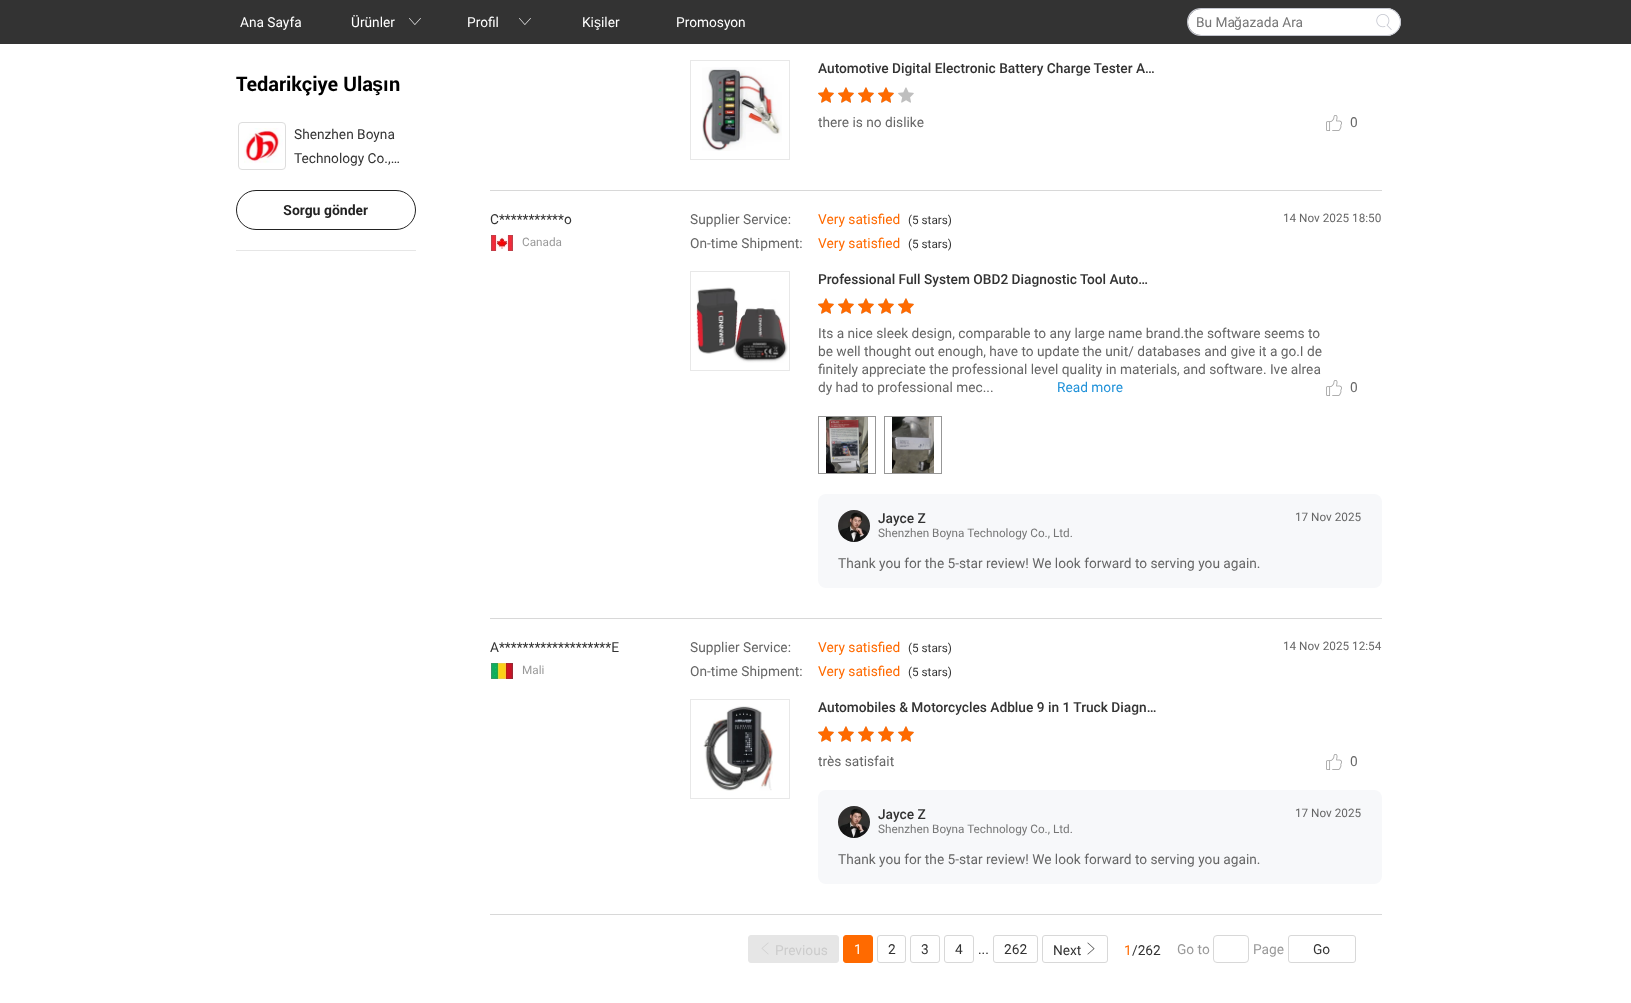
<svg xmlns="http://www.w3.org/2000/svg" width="1631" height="1003">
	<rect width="100%" height="100%" fill="#FFFFFF" />
	<rect x="0" y="0" width="1631" height="44" fill="#333333" />
	<g font-family="Roboto" font-size="14" fill="#FFFFFF">
		<text x="240" y="27">Ana Sayfa</text>
		<text x="351" y="27">Ürünler</text>
	</g>
	<image x="409" y="18" width="12" height="7" href="assets/img1.png" />
	<text x="467" y="27" font-family="Roboto" font-size="14" fill="#FFFFFF">Profil</text>
	<image x="519" y="18" width="12" height="7" href="assets/img1.png" />
	<text x="582" y="27" font-family="Roboto" font-size="14" fill="#FFFFFF">Ki</text>
	<text x="594" y="27" font-family="Liberation Sans" font-size="14" fill="#FFFFFF">ş</text>
	<g font-family="Roboto" font-size="14" fill="#FFFFFF">
		<text x="601" y="27">iler</text>
		<text x="676" y="27">Promosyon</text>
	</g>
	<path d="M1201 8H1368V36H1201C1193 36 1187 30 1187 22C1187 14 1193 8 1201 8ZM1201 9H1368V35H1201C1194 35 1188 29 1188 22C1188 15 1194 9 1201 9Z" fill="#C4C6CF" fill-rule="evenodd" />
	<path d="M1201 9H1367.5C1368 9 1368 9 1368 9.5V34.5C1368 35 1368 35 1367.5 35H1201C1194 35 1188 29 1188 22C1188 15 1194 9 1201 9Z" fill="#FFFFFF" />
	<text x="1196" y="27" font-family="Roboto" font-size="14" fill="#767676">Bu Ma</text>
	<text x="1234" y="27" font-family="Liberation Sans" font-size="14" fill="#767676">ğ</text>
	<text x="1242" y="27" font-family="Roboto" font-size="14" fill="#767676">azada Ara</text>
	<path d="M1368 8H1387C1394.5 8 1401 14.5 1401 22C1401 29.5 1394.5 36 1387 36H1368Z" fill="#FFFFFF" />
	<path d="M1368 8H1387C1394.5 8 1401 14.5 1401 22C1401 29.5 1394.5 36 1387 36H1368ZM1368 9H1387C1394 9 1400 15 1400 22C1400 29 1394 35 1387 35H1368Z" fill="#C4C6CF" fill-rule="evenodd" />
	<image x="1376" y="14" width="16" height="16" href="assets/img2.png" />
	<text x="236" y="91" font-family="Roboto" font-size="20" font-weight="700" fill="#000000">Tedarikçiye Ula</text>
	<text x="372" y="91" font-family="Liberation Sans" font-size="20" font-weight="700" fill="#000000">şı</text>
	<text x="389" y="91" font-family="Roboto" font-size="20" font-weight="700" fill="#000000">n</text>
	<rect x="238.5" y="122.5" width="47" height="47" rx="3.5" fill="none" stroke="#DDDDDD" />
	<image x="244" y="128" width="39" height="35" href="assets/img3.png" />
	<g font-family="Roboto" font-size="14" fill="#333333">
		<text x="294" y="139">Shenzhen Boyna</text>
		<text x="294" y="163">Technology Co.,…</text>
	</g>
	<rect x="236.5" y="190.5" width="179" height="39" rx="19.5" fill="none" stroke="#222222" />
	<text x="283" y="215" font-family="Roboto" font-size="14" font-weight="700" fill="#222222">Sorgu gönder</text>
	<rect x="236" y="250" width="180" height="1" fill="#E6E6E6" />
	<rect x="490" y="190" width="892" height="1" fill="#D8D8D8" />
	<rect x="690.5" y="60.5" width="99" height="99" fill="none" stroke="#E8E8E8" />
	<image x="702" y="67" width="80" height="84" href="assets/img4.png" />
	<text x="818" y="73" font-family="Roboto" font-size="14" font-weight="500" fill="#333333">Automotive Digital Electronic Battery Charge Tester A…</text>
	<image x="818" y="87" width="16" height="16" href="assets/img5.png" />
	<image x="838" y="87" width="16" height="16" href="assets/img5.png" />
	<image x="858" y="87" width="16" height="16" href="assets/img5.png" />
	<image x="878" y="87" width="16" height="16" href="assets/img5.png" />
	<image x="898" y="87" width="16" height="16" href="assets/img5.png" />
	<image x="818" y="87" width="16" height="16" href="assets/img6.png" />
	<image x="838" y="87" width="16" height="16" href="assets/img6.png" />
	<image x="858" y="87" width="16" height="16" href="assets/img6.png" />
	<image x="878" y="87" width="16" height="16" href="assets/img6.png" />
	<text x="818" y="127" font-family="Roboto" font-size="14" fill="#666666">there is no dislike</text>
	<image x="1326" y="115" width="16" height="16" href="assets/img7.png" />
	<text x="1350" y="127" font-family="Roboto" font-size="14" fill="#666666">0</text>
	<rect x="490" y="618" width="892" height="1" fill="#D8D8D8" />
	<text x="490" y="224" font-family="Roboto" font-size="14" fill="#333333">C***********o</text>
	<image x="491" y="235" width="22" height="16" href="assets/img8.png" />
	<text x="522" y="246" font-family="Roboto" font-size="12" fill="#999999">Canada</text>
	<text x="690" y="224" font-family="Roboto" font-size="14" fill="#666666">Supplier Service:</text>
	<text x="818" y="224" font-family="Roboto" font-size="14" fill="#FF6A00">Very satisfied</text>
	<text x="908" y="224" font-family="Roboto" font-size="12" fill="#333333">(5 stars)</text>
	<text x="690" y="248" font-family="Roboto" font-size="14" fill="#666666">On-time Shipment:</text>
	<text x="818" y="248" font-family="Roboto" font-size="14" fill="#FF6A00">Very satisfied</text>
	<text x="908" y="248" font-family="Roboto" font-size="12" fill="#333333">(5 stars)</text>
	<text x="1283" y="222" font-family="Roboto" font-size="12" fill="#666666">14 Nov 2025 18:50</text>
	<rect x="690.5" y="271.5" width="99" height="99" fill="none" stroke="#E8E8E8" />
	<image x="696" y="287" width="92" height="76" href="assets/img9.png" />
	<text x="818" y="284" font-family="Roboto" font-size="14" font-weight="500" fill="#333333">Professional Full System OBD2 Diagnostic Tool Auto…</text>
	<image x="818" y="298" width="16" height="16" href="assets/img5.png" />
	<image x="838" y="298" width="16" height="16" href="assets/img5.png" />
	<image x="858" y="298" width="16" height="16" href="assets/img5.png" />
	<image x="878" y="298" width="16" height="16" href="assets/img5.png" />
	<image x="898" y="298" width="16" height="16" href="assets/img5.png" />
	<image x="818" y="298" width="16" height="16" href="assets/img6.png" />
	<image x="838" y="298" width="16" height="16" href="assets/img6.png" />
	<image x="858" y="298" width="16" height="16" href="assets/img6.png" />
	<image x="878" y="298" width="16" height="16" href="assets/img6.png" />
	<image x="898" y="298" width="16" height="16" href="assets/img6.png" />
	<g font-family="Roboto" font-size="14" fill="#666666">
		<text x="818" y="338">Its a nice sleek design, comparable to any large name brand.the software seems to</text>
		<text x="818" y="356">be well thought out enough, have to update the unit/ databases and give it a go.I de</text>
		<text x="818" y="374">finitely appreciate the professional level quality in materials, and software. Ive alrea</text>
		<text x="818" y="392">dy had to professional mec...</text>
	</g>
	<text x="1057" y="392" font-family="Roboto" font-size="14" fill="#2192D9">Read more</text>
	<image x="1326" y="380" width="16" height="16" href="assets/img7.png" />
	<text x="1350" y="392" font-family="Roboto" font-size="14" fill="#666666">0</text>
	<rect x="818.5" y="416.5" width="57" height="57" fill="none" stroke="#979797" />
	<image x="826" y="417" width="42" height="56" href="assets/img10.png" />
	<rect x="884.5" y="416.5" width="57" height="57" fill="none" stroke="#979797" />
	<image x="892" y="417" width="42" height="56" href="assets/img11.png" />
	<rect x="818" y="494" width="564" height="94" rx="8" fill="#F7F8FA" />
	<image x="838" y="510" width="32" height="32" href="assets/img12.png" />
	<text x="878" y="523" font-family="Roboto" font-size="14" font-weight="500" fill="#333333">Jayce Z</text>
	<text x="878" y="537" font-family="Roboto" font-size="12" fill="#767676">Shenzhen Boyna Technology Co., Ltd.</text>
	<text x="1295" y="521" font-family="Roboto" font-size="12" fill="#666666">17 Nov 2025</text>
	<text x="838" y="568" font-family="Roboto" font-size="14" fill="#666666">Thank you for the 5-star review! We look forward to serving you again.</text>
	<rect x="490" y="914" width="892" height="1" fill="#D8D8D8" />
	<text x="490" y="652" font-family="Roboto" font-size="14" fill="#333333">A*******************E</text>
	<image x="491" y="663" width="22" height="16" href="assets/img13.png" />
	<text x="522" y="674" font-family="Roboto" font-size="12" fill="#999999">Mali</text>
	<text x="690" y="652" font-family="Roboto" font-size="14" fill="#666666">Supplier Service:</text>
	<text x="818" y="652" font-family="Roboto" font-size="14" fill="#FF6A00">Very satisfied</text>
	<text x="908" y="652" font-family="Roboto" font-size="12" fill="#333333">(5 stars)</text>
	<text x="690" y="676" font-family="Roboto" font-size="14" fill="#666666">On-time Shipment:</text>
	<text x="818" y="676" font-family="Roboto" font-size="14" fill="#FF6A00">Very satisfied</text>
	<text x="908" y="676" font-family="Roboto" font-size="12" fill="#333333">(5 stars)</text>
	<text x="1283" y="650" font-family="Roboto" font-size="12" fill="#666666">14 Nov 2025 12:54</text>
	<rect x="690.5" y="699.5" width="99" height="99" fill="none" stroke="#E8E8E8" />
	<image x="703" y="706" width="70" height="85" href="assets/img14.png" />
	<text x="818" y="712" font-family="Roboto" font-size="14" font-weight="500" fill="#333333">Automobiles &amp; Motorcycles Adblue 9 in 1 Truck Diagn…</text>
	<image x="818" y="726" width="16" height="16" href="assets/img5.png" />
	<image x="838" y="726" width="16" height="16" href="assets/img5.png" />
	<image x="858" y="726" width="16" height="16" href="assets/img5.png" />
	<image x="878" y="726" width="16" height="16" href="assets/img5.png" />
	<image x="898" y="726" width="16" height="16" href="assets/img5.png" />
	<image x="818" y="726" width="16" height="16" href="assets/img6.png" />
	<image x="838" y="726" width="16" height="16" href="assets/img6.png" />
	<image x="858" y="726" width="16" height="16" href="assets/img6.png" />
	<image x="878" y="726" width="16" height="16" href="assets/img6.png" />
	<image x="898" y="726" width="16" height="16" href="assets/img6.png" />
	<text x="818" y="766" font-family="Roboto" font-size="14" fill="#666666">très satisfait</text>
	<image x="1326" y="754" width="16" height="16" href="assets/img7.png" />
	<text x="1350" y="766" font-family="Roboto" font-size="14" fill="#666666">0</text>
	<rect x="818" y="790" width="564" height="94" rx="8" fill="#F7F8FA" />
	<image x="838" y="806" width="32" height="32" href="assets/img12.png" />
	<text x="878" y="819" font-family="Roboto" font-size="14" font-weight="500" fill="#333333">Jayce Z</text>
	<text x="878" y="833" font-family="Roboto" font-size="12" fill="#767676">Shenzhen Boyna Technology Co., Ltd.</text>
	<text x="1295" y="817" font-family="Roboto" font-size="12" fill="#666666">17 Nov 2025</text>
	<text x="838" y="864" font-family="Roboto" font-size="14" fill="#666666">Thank you for the 5-star review! We look forward to serving you again.</text>
	<rect x="748.5" y="935.5" width="90" height="27" rx="2.5" fill="#E6E6E6" stroke="#E6E6E6" />
	<image x="761" y="942" width="8" height="13" href="assets/img15.png" />
	<text x="775" y="955" font-family="Roboto" font-size="14" fill="#CCCCCC">Previous</text>
	<rect x="843.5" y="935.5" width="29" height="27" rx="2.5" fill="#FF6A00" stroke="#FF6A00" />
	<text x="854" y="954" font-family="Roboto" font-size="14" fill="#FFFFFF">1</text>
	<rect x="877.5" y="935.5" width="28" height="27" rx="2.5" fill="none" stroke="#D8D8D8" />
	<text x="888" y="954" font-family="Roboto" font-size="14" fill="#333333">2</text>
	<rect x="910.5" y="935.5" width="29" height="27" rx="2.5" fill="none" stroke="#D8D8D8" />
	<text x="921" y="954" font-family="Roboto" font-size="14" fill="#333333">3</text>
	<rect x="944.5" y="935.5" width="29" height="27" rx="2.5" fill="none" stroke="#D8D8D8" />
	<g font-family="Roboto" font-size="14" fill="#333333">
		<text x="955" y="954">4</text>
		<text x="978" y="954">...</text>
	</g>
	<rect x="993.5" y="935.5" width="44" height="27" rx="2.5" fill="none" stroke="#D8D8D8" />
	<text x="1004" y="954" font-family="Roboto" font-size="14" fill="#333333">262</text>
	<rect x="1042.5" y="935.5" width="65" height="27" rx="2.5" fill="none" stroke="#D8D8D8" />
	<text x="1053" y="955" font-family="Roboto" font-size="14" fill="#333333">Next</text>
	<image x="1087" y="942" width="8" height="13" href="assets/img16.png" />
	<text x="1124" y="955" font-family="Roboto" font-size="14" fill="#FF6A00">1</text>
	<text x="1132" y="955" font-family="Roboto" font-size="14" fill="#333333">/262</text>
	<text x="1177" y="954" font-family="Roboto" font-size="14" fill="#999999">Go to</text>
	<rect x="1213.5" y="935.5" width="35" height="27" rx="3.5" fill="none" stroke="#D8D8D8" />
	<text x="1253" y="954" font-family="Roboto" font-size="14" fill="#999999">Page</text>
	<rect x="1288.5" y="935.5" width="67" height="27" rx="2.5" fill="none" stroke="#D8D8D8" />
	<text x="1313" y="954" font-family="Roboto" font-size="14" fill="#333333">Go</text>
</svg>
